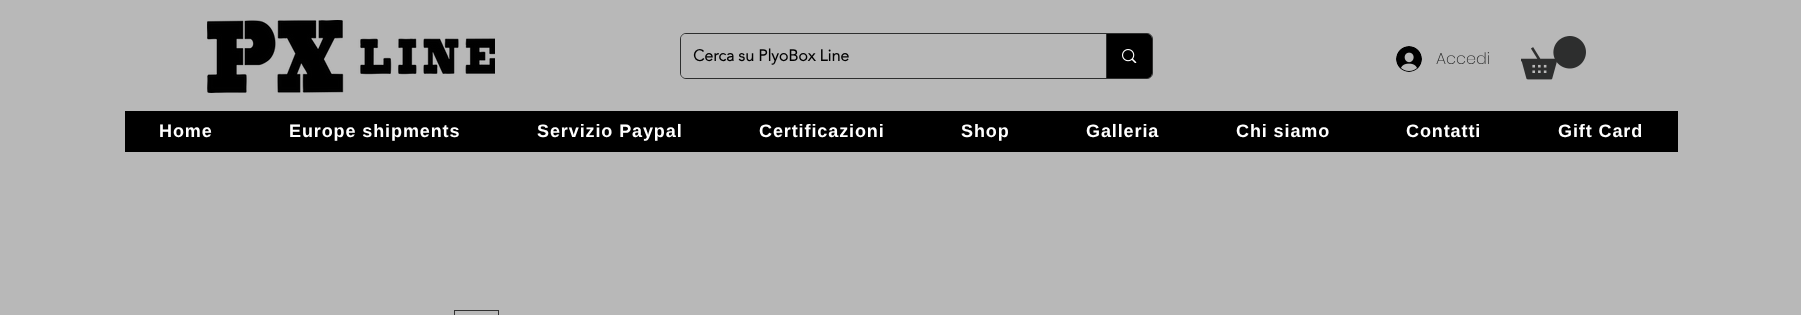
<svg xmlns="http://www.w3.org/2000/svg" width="1801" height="315">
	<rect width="100%" height="100%" fill="#B8B8B8" />
	<image x="207" y="20" width="288" height="73" href="assets/img1.png" />
	<rect x="680.5" y="33.5" width="472" height="45" rx="5.5" fill="none" stroke="#2D2E2E" />
	<rect x="681" y="34" width="471" height="44" rx="5" fill="#B8B8B8" />
	<text x="693" y="61" font-family="'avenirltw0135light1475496'" font-size="16" font-weight="700" fill="#000000">Cerca su PlyoBox Line</text>
	<path d="M1106 34H1147C1150 34 1152 36 1152 39V73C1152 76 1150 78 1147 78H1106Z" fill="#000000" />
	<rect x="1106" y="34" width="1" height="44" fill="#2D2E2E" />
	<image x="1122" y="49" width="15" height="14" href="assets/img2.png" />
	<image x="1396" y="46" width="26" height="26" href="assets/img3.png" />
	<text x="1436" y="64" font-family="Poppins" font-size="16" font-weight="200" fill="#2D2E2E">Accedi</text>
	<image x="1521" y="36" width="65" height="44" href="assets/img4.png" />
	<rect x="125" y="111" width="1553" height="41" fill="#000000" />
	<g font-family="Liberation Sans" font-size="18" font-weight="700" letter-spacing="0.9" fill="#FFFFFF">
		<text x="159" y="137">Home</text>
		<text x="289" y="137">Europe shipments</text>
		<text x="537" y="137">Servizio Paypal</text>
		<text x="759" y="137">Certificazioni</text>
		<text x="961" y="137">Shop</text>
		<text x="1086" y="137">Galleria</text>
		<text x="1236" y="137">Chi siamo</text>
		<text x="1406" y="137">Contatti</text>
		<text x="1558" y="137">Gift Card</text>
	</g>
	<rect x="454.5" y="310.5" width="44" height="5" fill="none" stroke="#313131" />
</svg>
